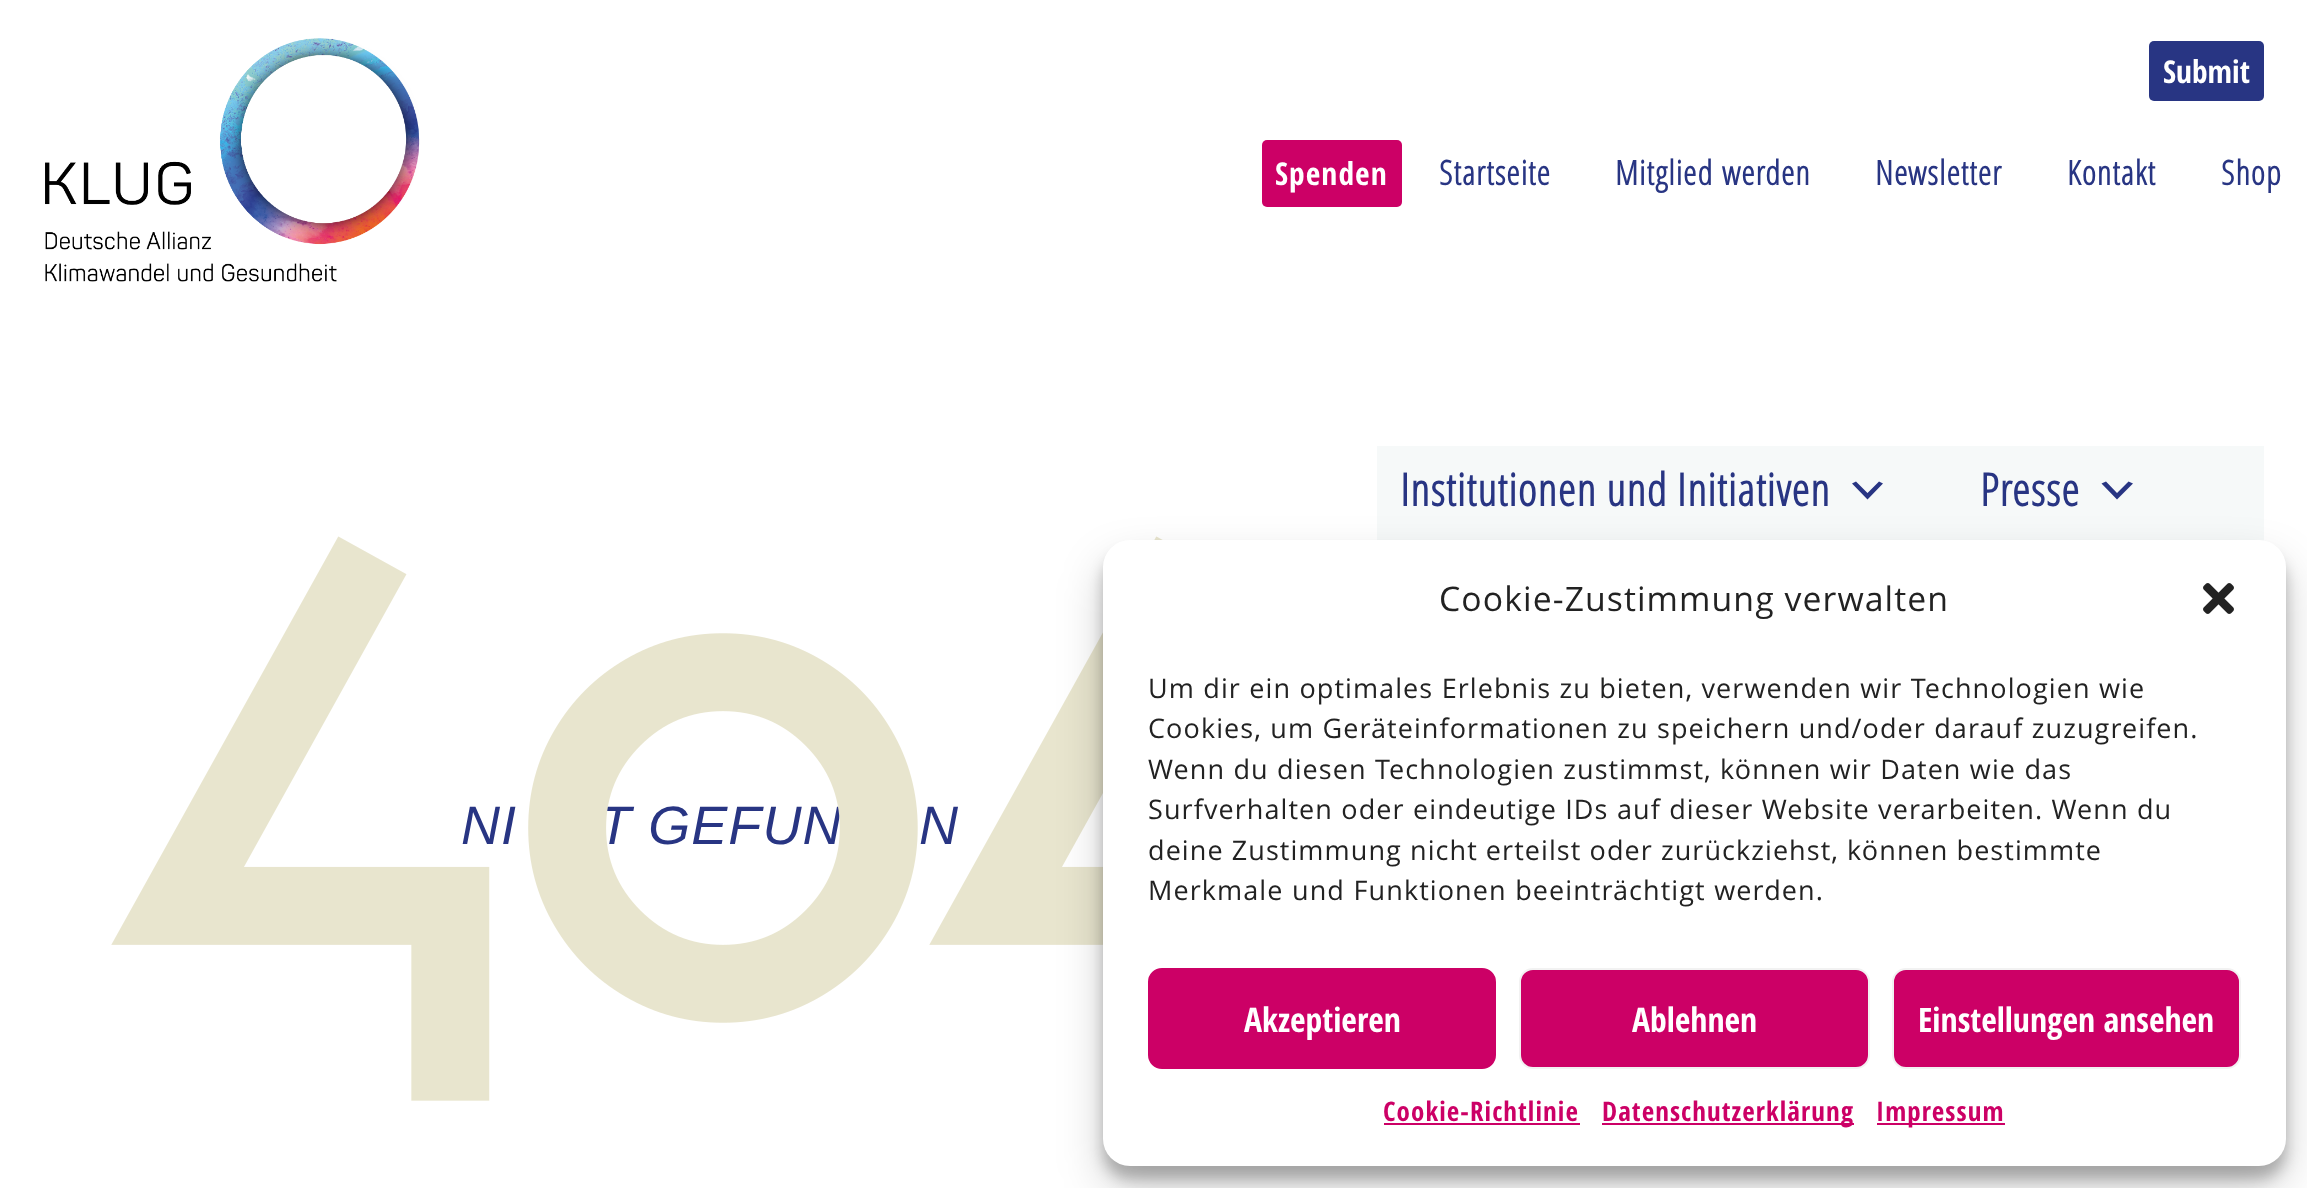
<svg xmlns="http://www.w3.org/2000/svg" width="2307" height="1188">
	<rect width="100%" height="100%" fill="#FFFFFF" />
	<image x="45" y="38" width="375" height="244" href="assets/img1.png" />
	<rect x="2149" y="41" width="115" height="60" rx="5" fill="#283583" />
	<text x="2163" y="83" font-family="Open Sans Condensed" font-size="31.5" font-weight="700" fill="#FFFFFF">Submit</text>
	<rect x="1262" y="140" width="140" height="67" rx="5" fill="#CC0066" />
	<text x="1275" y="185" font-family="Open Sans Condensed" font-size="31.5" font-weight="700" letter-spacing="1.08" fill="#FFFFFF">Spenden</text>
	<g font-family="'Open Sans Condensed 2'" font-size="33.75" font-weight="700" letter-spacing="1.08" fill="#283583">
		<text x="1439" y="185">Startseite</text>
		<text x="1615" y="185" word-spacing="1">Mitglied werden</text>
		<text x="1875" y="185">Newsletter</text>
		<text x="2067" y="185">Kontakt</text>
		<text x="2221" y="185">Shop</text>
	</g>
	<rect x="1377" y="446" width="887" height="95" fill="#F6F9F9" />
	<text x="1400" y="506" font-family="'Open Sans Condensed 2'" font-size="45" font-weight="700" letter-spacing="1.08" fill="#283583">Institutionen und Initiativen</text>
	<path d="M1856 481.5L1867.5 493L1879 481.5L1883 483.5L1867.5 499.5L1852 483.5Z" fill="#283583" />
	<text x="1980" y="506" font-family="'Open Sans Condensed 2'" font-size="45" font-weight="700" letter-spacing="1.08" fill="#283583">Presse</text>
	<path d="M2106 481.5L2117 493L2128.5 481.5L2133 483.5L2117 499.5L2101.5 483.5Z" fill="#283583" />
	<g font-family="Liberation Sans" font-size="54" font-style="italic" letter-spacing="1.08" fill="#283583">
		<text x="461" y="844">NI</text>
		<text x="598" y="844">T GEFUN</text>
		<text x="919" y="844">N</text>
	</g>
	<image x="111" y="536" width="1052" height="565" href="assets/img2.png" />
	<rect x="1103" y="554" width="1183" height="625" rx="27" fill="#000000" fill-opacity="0.23" filter="blur(7px)" />
	<rect x="1103" y="563" width="1183" height="625" rx="27" fill="#000000" fill-opacity="0.19" filter="blur(22.5px)" />
	<rect x="1103" y="540" width="1183" height="626" rx="27" fill="#FFFFFF" />
	<text x="1439" y="611" font-family="Open Sans" font-size="33.75" letter-spacing="1.08" fill="#222222">Cookie-Zustimmung verwalten</text>
	<image x="2203" y="583" width="31" height="31" href="assets/img3.png" />
	<g font-family="Open Sans" font-size="27" letter-spacing="1.08" fill="#222222">
		<text x="1148" y="698" word-spacing="0.25">Um dir ein optimales Erlebnis zu bieten, verwenden wir Technologien wie</text>
		<text x="1148" y="738" word-spacing="0.25">Cookies, um Geräteinformationen zu speichern und/oder darauf zuzugreifen.</text>
		<text x="1148" y="779" word-spacing="0.25">Wenn du diesen Technologien zustimmst, können wir Daten wie das</text>
		<text x="1148" y="819" word-spacing="0.25">Surfverhalten oder eindeutige IDs auf dieser Website verarbeiten. Wenn du</text>
		<text x="1148" y="860">deine Zustimmung nicht erteilst oder zurückziehst, können bestimmte</text>
		<text x="1148" y="900" word-spacing="0.5">Merkmale und Funktionen beeinträchtigt werden.</text>
	</g>
	<rect x="1149" y="969" width="346" height="99" rx="13" fill="#CC0066" stroke="#CC0066" stroke-width="2" />
	<text x="1244" y="1032" font-family="Open Sans Condensed" font-size="33.75" font-weight="700" fill="#FFFFFF">Akzeptieren</text>
	<rect x="1520" y="969" width="349" height="99" rx="13" fill="#CC0066" stroke="#F2F2F2" stroke-width="2" />
	<text x="1632" y="1032" font-family="Open Sans Condensed" font-size="33.75" font-weight="700" fill="#FFFFFF">Ablehnen</text>
	<rect x="1893" y="969" width="347" height="99" rx="13" fill="#CC0066" stroke="#F2F2F2" stroke-width="2" />
	<text x="1918" y="1032" font-family="Open Sans Condensed" font-size="33.75" font-weight="700" fill="#FFFFFF">Einstellungen ansehen</text>
	<text x="1383" y="1121" font-family="Open Sans Condensed" font-size="27" font-weight="700" letter-spacing="1.08" fill="#CC0066">Cookie-Richtlinie</text>
	<rect x="1384" y="1123" width="196" height="2" fill="#CC0066" />
	<rect x="1602" y="1123" width="252" height="2" fill="#CC0066" />
	<text x="1602" y="1121" font-family="Open Sans Condensed" font-size="27" font-weight="700" letter-spacing="1.08" fill="#CC0066">Datenschutzerklärung</text>
	<rect x="1877" y="1123" width="128" height="2" fill="#CC0066" />
	<text x="1876" y="1121" font-family="Open Sans Condensed" font-size="27" font-weight="700" letter-spacing="1.08" fill="#CC0066">Impressum</text>
</svg>
